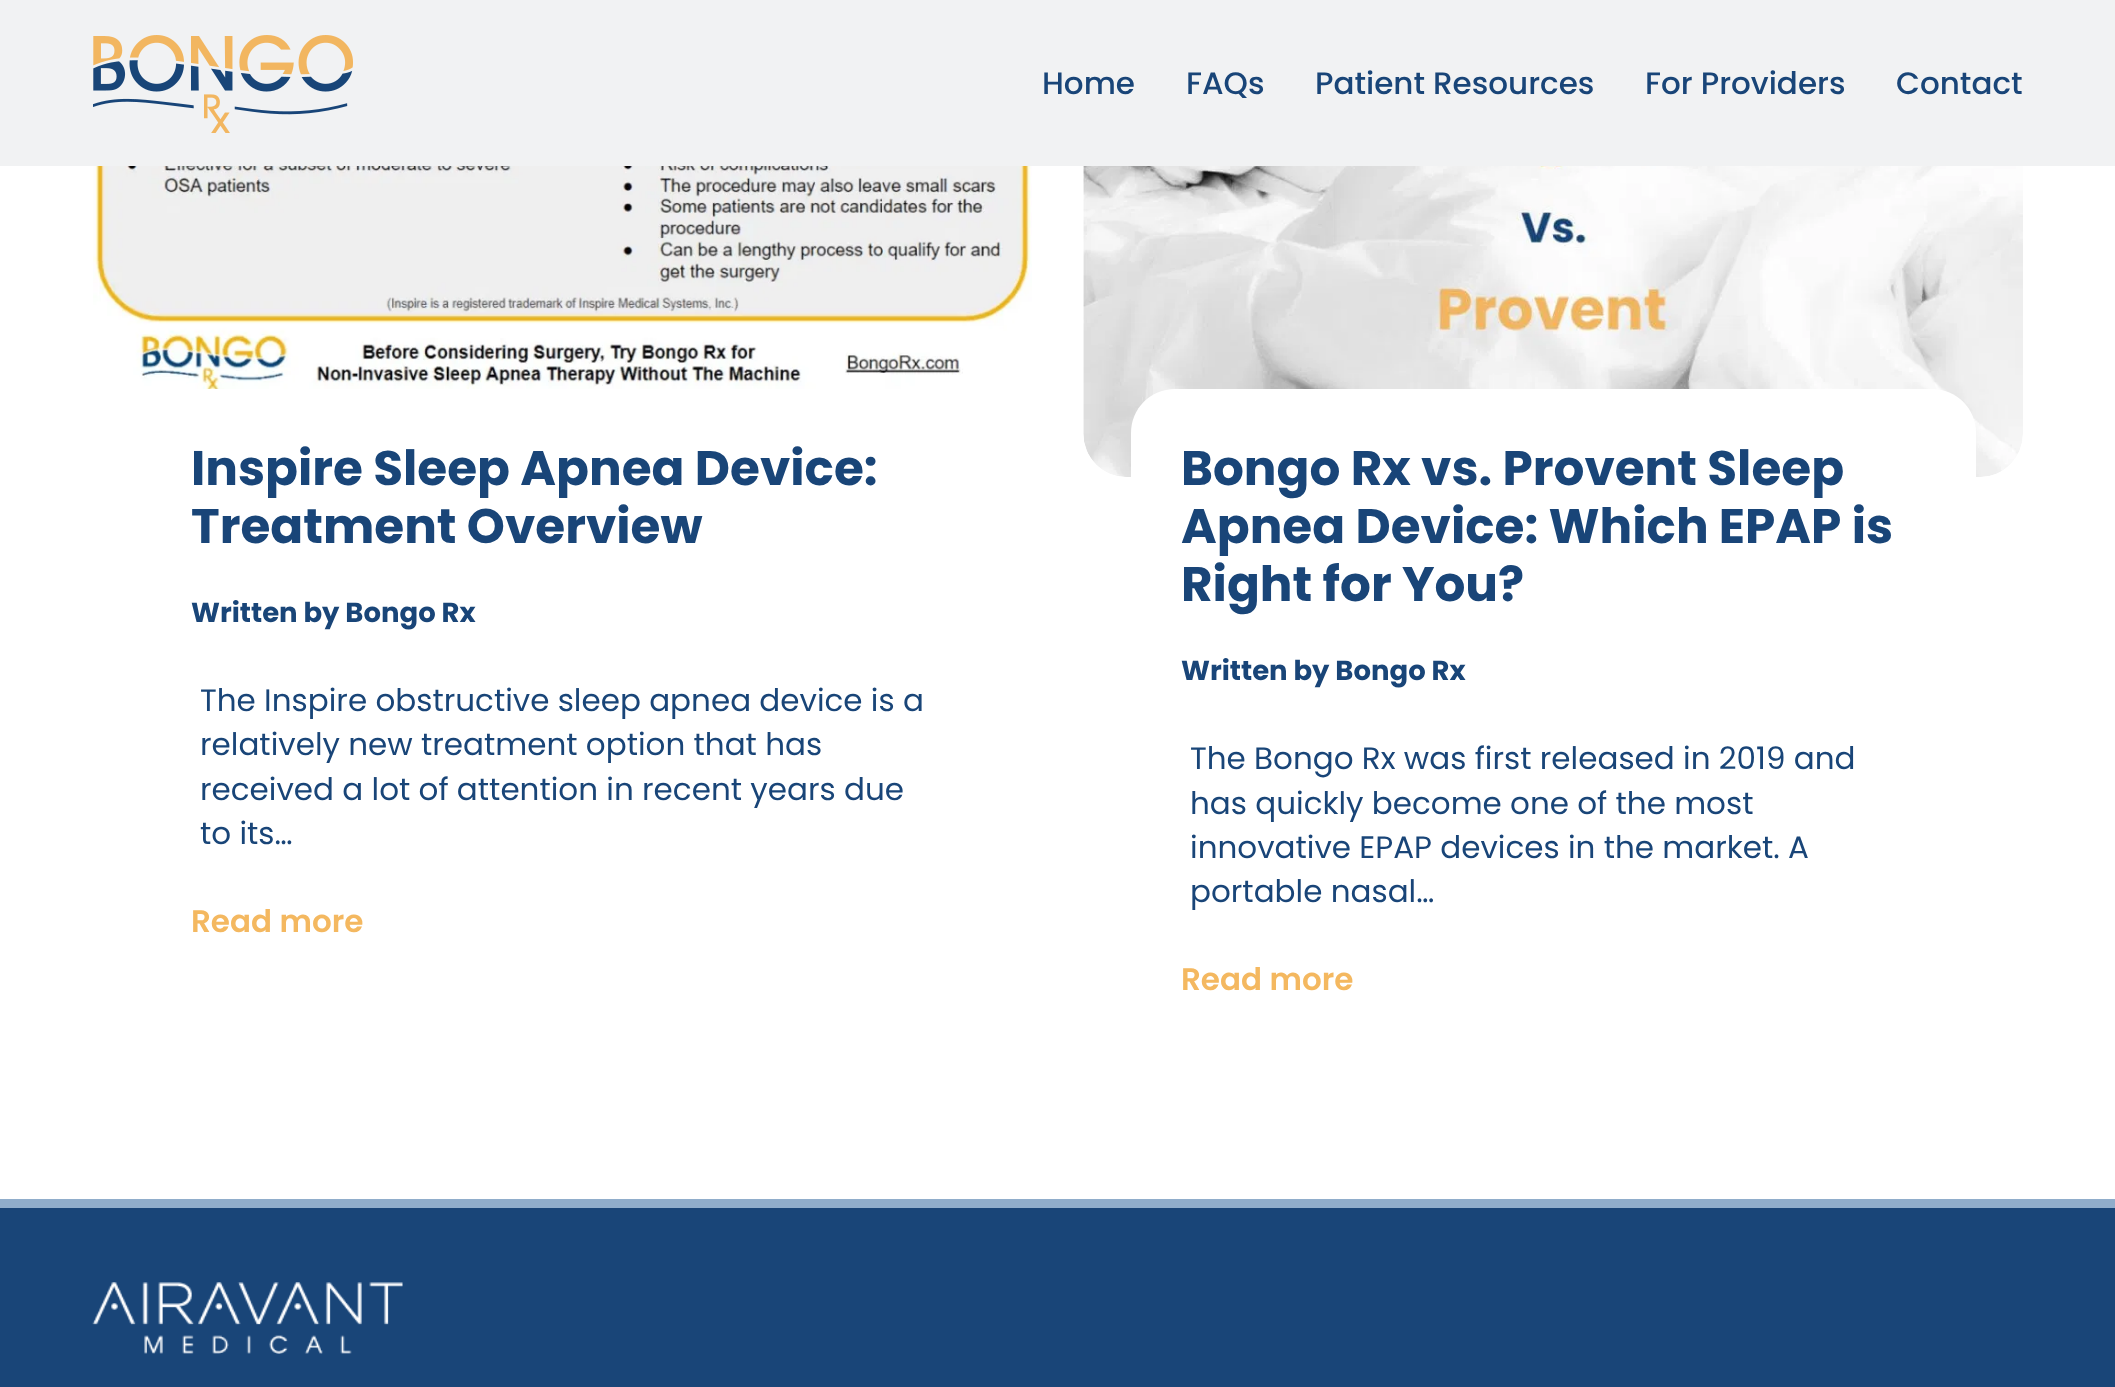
<svg xmlns="http://www.w3.org/2000/svg" width="2115" height="1387">
	<rect width="100%" height="100%" fill="#FFFFFF" />
	<rect x="0" y="0" width="2115" height="166" fill="#F1F2F3" />
	<image x="93" y="35" width="260" height="98" href="assets/img1.png" />
	<g font-family="Poppins" font-size="31" font-weight="500" fill="#194578">
		<text x="1042" y="94">Home</text>
		<text x="1186" y="94">FAQs</text>
		<text x="1315" y="94">Patient Resources</text>
		<text x="1645" y="94">For Providers</text>
		<text x="1896" y="94">Contact</text>
	</g>
	<image x="93" y="166" width="939" height="228" href="assets/img2.png" />
	<path d="M184 389H941C965.5 389 985 408.5 985 433V994H140V433C140 408.5 159.5 389 184 389Z" fill="#FFFFFF" />
	<g font-family="Poppins" font-size="48.5" font-weight="700" fill="#194578">
		<text x="191" y="485">Inspire Sleep Apnea Device:</text>
		<text x="191" y="543">Treatment Overview</text>
	</g>
	<text x="191" y="622" font-family="Poppins" font-size="27.5" font-weight="700" fill="#194578">Written by Bongo Rx</text>
	<g font-family="Poppins" font-size="31" fill="#194578">
		<text x="200" y="711">The Inspire obstructive sleep apnea device is a</text>
		<text x="200" y="755">relatively new treatment option that has</text>
		<text x="200" y="800">received a lot of attention in recent years due</text>
		<text x="200" y="844">to its…</text>
	</g>
	<text x="191" y="932" font-family="Poppins" font-size="31" font-weight="600" fill="#F4B860">Read more</text>
	<image x="1083" y="166" width="940" height="311" href="assets/img3.png" />
	<path d="M1175 389H1932C1956.5 389 1976 408.5 1976 433V1052H1131V433C1131 408.5 1150.5 389 1175 389Z" fill="#FFFFFF" />
	<g font-family="Poppins" font-size="48.5" font-weight="700" fill="#194578">
		<text x="1181" y="485">Bongo Rx vs. Provent Sleep</text>
		<text x="1181" y="543">Apnea Device: Which EPAP is</text>
		<text x="1181" y="601">Right for You?</text>
	</g>
	<text x="1181" y="680" font-family="Poppins" font-size="27.5" font-weight="700" fill="#194578">Written by Bongo Rx</text>
	<g font-family="Poppins" font-size="31" fill="#194578">
		<text x="1190" y="769">The Bongo Rx was first released in 2019 and</text>
		<text x="1190" y="814">has quickly become one of the most</text>
		<text x="1190" y="858">innovative EPAP devices in the market. A</text>
		<text x="1190" y="902">portable nasal…</text>
	</g>
	<text x="1181" y="990" font-family="Poppins" font-size="31" font-weight="600" fill="#F4B860">Read more</text>
	<rect x="0" y="1208" width="2115" height="179" fill="#194578" />
	<rect x="0" y="1199" width="2115" height="9" fill="#90ADCB" />
	<image x="92" y="1282" width="311" height="72" href="assets/img4.png" />
</svg>
